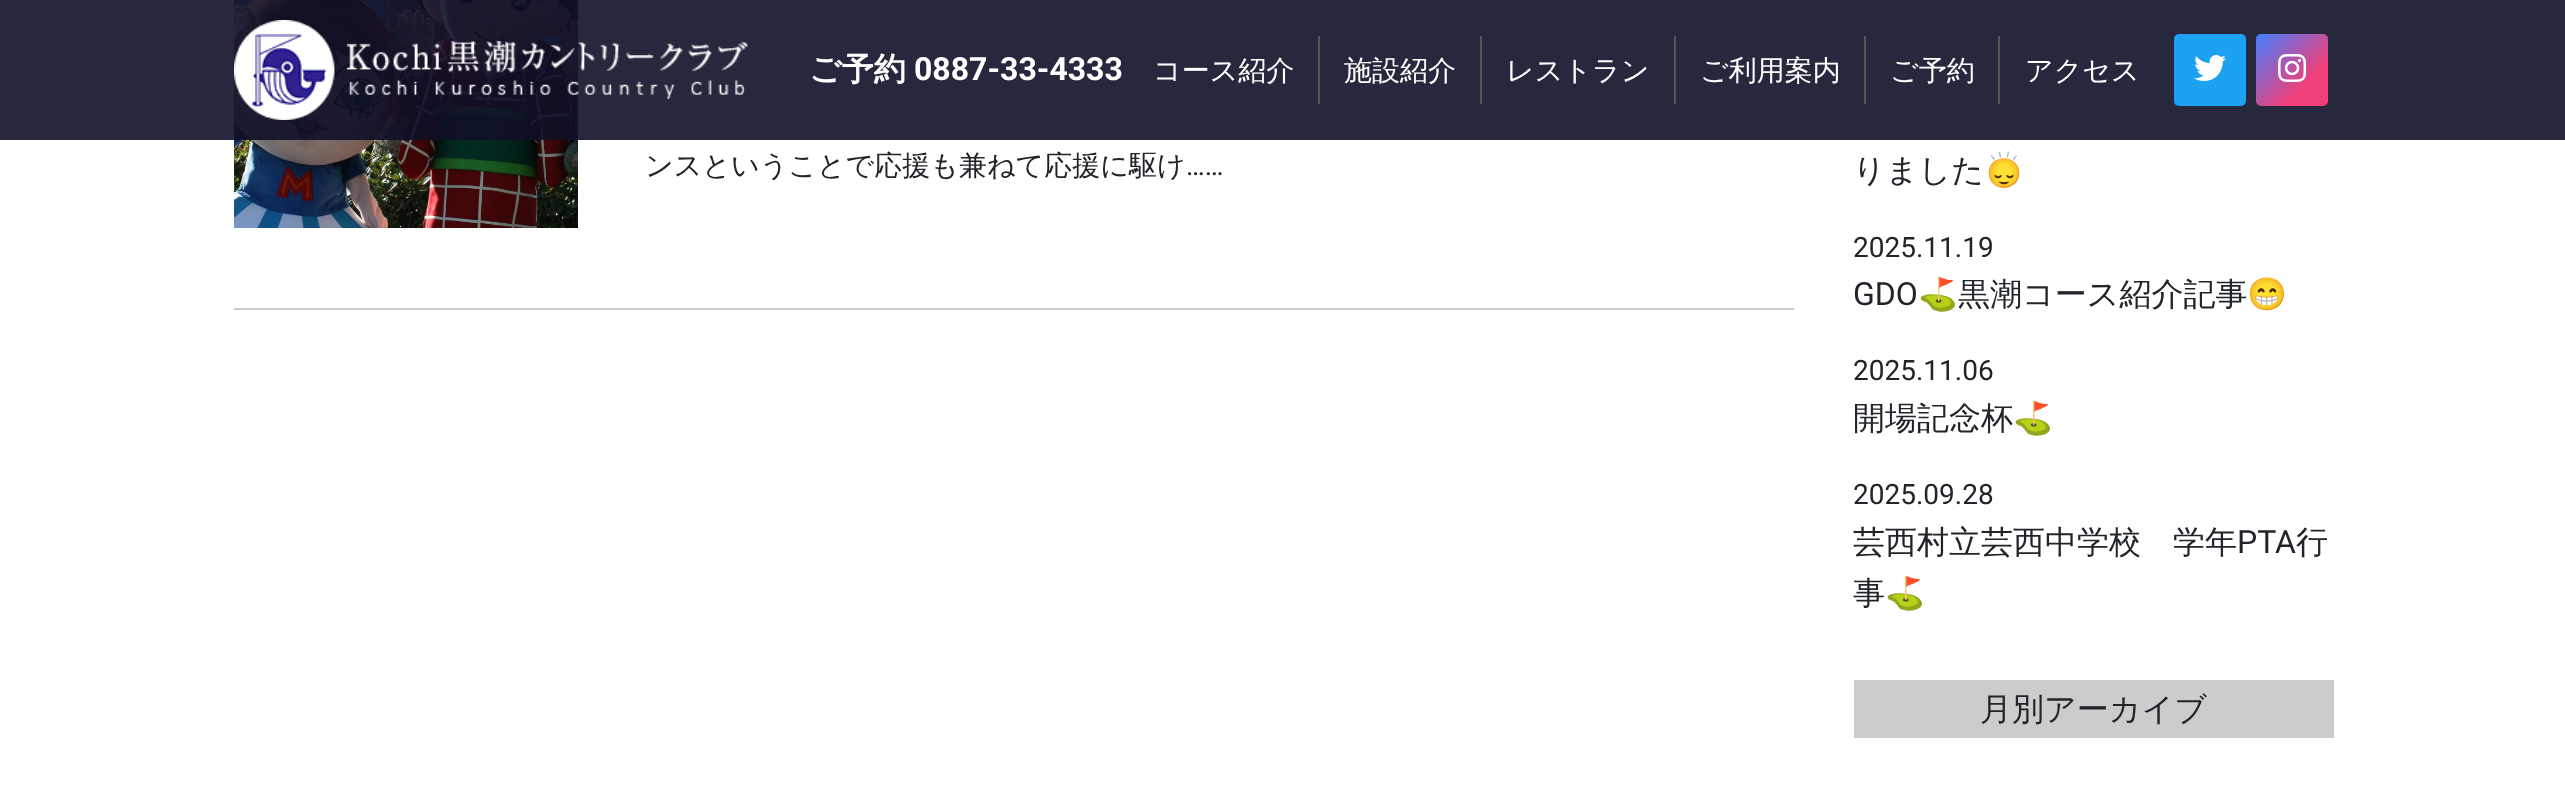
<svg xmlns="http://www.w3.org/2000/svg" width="2565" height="790">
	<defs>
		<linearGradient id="g1" gradientUnits="userSpaceOnUse" x1="2256" y1="34" x2="2328" y2="106"><stop offset="0" stop-color="#427EFF" /><stop offset="0.7" stop-color="#F13F79" /></linearGradient>
	</defs>
	<rect width="100%" height="100%" fill="#FFFFFF" />
	<image x="234" y="0" width="344" height="228" href="assets/img4.png" />
	<rect x="0" y="0" width="2565" height="140" fill="#0F0F28" fill-opacity="0.9" />
	<image x="234" y="20" width="514" height="100" href="assets/img1.png" />
	<text x="809" y="80" font-family="WenQuanYi Zen Hei" font-size="32" font-weight="700" fill="#FFFFFF">ご予約</text>
	<text x="914" y="80" font-family="Roboto" font-size="32" font-weight="700" fill="#FFFFFF">0887-33-4333</text>
	<rect x="1318" y="36" width="2" height="68" fill="#555555" />
	<text x="1153" y="80" font-family="WenQuanYi Zen Hei" font-size="28" font-weight="500" fill="#FFFFFF">コース紹介</text>
	<rect x="1480" y="36" width="2" height="68" fill="#555555" />
	<text x="1344" y="80" font-family="WenQuanYi Zen Hei" font-size="28" font-weight="500" fill="#FFFFFF">施設紹介</text>
	<rect x="1674" y="36" width="2" height="68" fill="#555555" />
	<text x="1506" y="80" font-family="WenQuanYi Zen Hei" font-size="28" font-weight="500" fill="#FFFFFF">レストラン</text>
	<rect x="1864" y="36" width="2" height="68" fill="#555555" />
	<text x="1700" y="80" font-family="WenQuanYi Zen Hei" font-size="28" font-weight="500" fill="#FFFFFF">ご利用案内</text>
	<rect x="1998" y="36" width="2" height="68" fill="#555555" />
	<g font-family="WenQuanYi Zen Hei" font-size="28" font-weight="500" fill="#FFFFFF">
		<text x="1890" y="80">ご予約</text>
		<text x="2025" y="80">アクセス</text>
	</g>
	<rect x="2174" y="34" width="72" height="72" rx="5" fill="#1DA1F2" />
	<image x="2194" y="55" width="32" height="26" href="assets/img2.png" />
	<rect x="2256" y="34" width="72" height="72" rx="5" fill="url(#g1)" />
	<image x="2278" y="54" width="29" height="28" href="assets/img3.png" />
	<rect x="234" y="308" width="1560" height="2" fill="#CCCCCC" />
	<text x="645" y="175" font-family="WenQuanYi Zen Hei" font-size="28" font-weight="500" fill="#212529">ンスということで応援も兼ねて応援に駆け</text>
	<text x="1186" y="175" font-family="Roboto" font-size="28" fill="#212529">……</text>
	<text x="1853" y="181" font-family="WenQuanYi Zen Hei" font-size="32" font-weight="500" fill="#212529">りました</text>
	<text x="1984" y="181" font-family="Noto Color Emoji" font-size="32" fill="#212529">🙂‍↕️</text>
	<text x="1853" y="257" font-family="Roboto" font-size="28" fill="#212529">2025.11.19</text>
	<text x="1853" y="305" font-family="Roboto" font-size="32" fill="#212529">GDO</text>
	<text x="1918" y="305" font-family="Noto Color Emoji" font-size="32" fill="#212529">⛳</text>
	<text x="1958" y="305" font-family="WenQuanYi Zen Hei" font-size="32" font-weight="500" fill="#212529">黒潮コース紹介記事</text>
	<text x="2247" y="305" font-family="Noto Color Emoji" font-size="32" fill="#212529">😁</text>
	<text x="1853" y="380" font-family="Roboto" font-size="28" fill="#212529">2025.11.06</text>
	<text x="1853" y="429" font-family="WenQuanYi Zen Hei" font-size="32" font-weight="500" fill="#212529">開場記念杯</text>
	<text x="2013" y="429" font-family="Noto Color Emoji" font-size="32" fill="#212529">⛳</text>
	<text x="1853" y="504" font-family="Roboto" font-size="28" fill="#212529">2025.09.28</text>
	<text x="1853" y="553" font-family="WenQuanYi Zen Hei" font-size="32" font-weight="500" fill="#212529">芸西村立芸西中学校　学年</text>
	<text x="2237" y="553" font-family="Roboto" font-size="32" fill="#212529">PTA</text>
	<g font-family="WenQuanYi Zen Hei" font-size="32" font-weight="500" fill="#212529">
		<text x="2296" y="553">行</text>
		<text x="1853" y="604">事</text>
	</g>
	<text x="1885" y="604" font-family="Noto Color Emoji" font-size="32" fill="#212529">⛳</text>
	<rect x="1854" y="680" width="480" height="58" fill="#CCCCCC" />
	<text x="1980" y="720" font-family="WenQuanYi Zen Hei" font-size="32" font-weight="500" fill="#212529">月別アーカイブ</text>
</svg>
